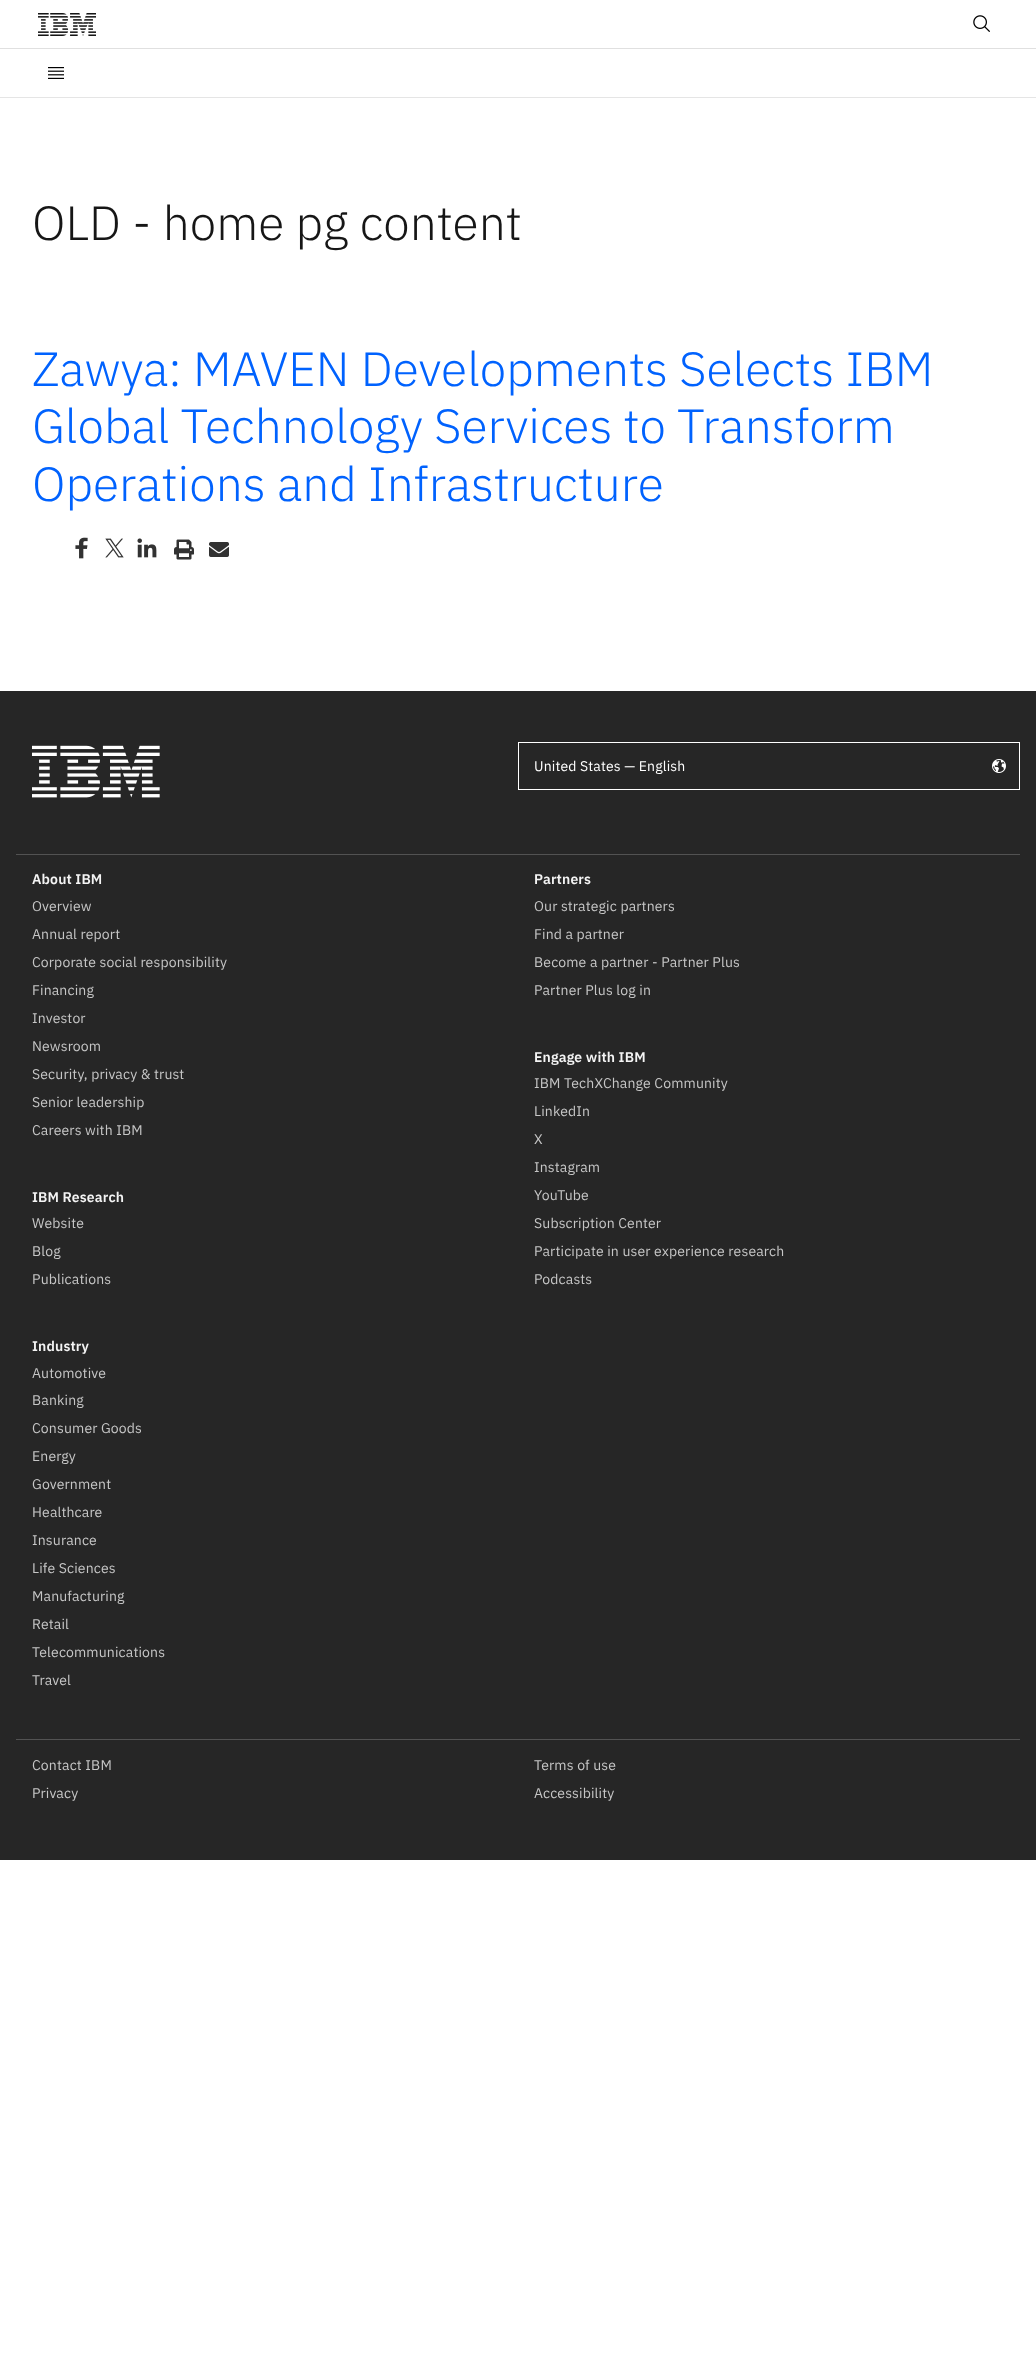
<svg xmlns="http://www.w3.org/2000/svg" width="1036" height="2360">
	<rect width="100%" height="100%" fill="#FFFFFF" />
	<image x="38" y="13" width="58" height="23" href="assets/img1.png" />
	<image x="973" y="15" width="17" height="17" href="assets/img2.png" />
	<rect x="0" y="48" width="1036" height="1" fill="#E0E0E0" />
	<image x="48" y="67" width="16" height="12" href="assets/img3.png" />
	<rect x="0" y="97" width="1036" height="1" fill="#E5E5E5" />
	<text x="32" y="240" font-family="IBM Plex Sans" font-size="48" font-weight="300" fill="#161616">OLD - home pg content</text>
	<g font-family="IBM Plex Sans" font-size="48" font-weight="300" fill="#0062FE">
		<text x="32" y="386">Zawya: MAVEN Developments Selects IBM</text>
		<text x="32" y="443">Global Technology Services to Transform</text>
		<text x="32" y="501">Operations and Infrastructure</text>
	</g>
	<image x="75" y="537" width="13" height="22" href="assets/img4.png" />
	<image x="105" y="538" width="19" height="20" href="assets/img5.png" />
	<image x="137" y="538" width="20" height="20" href="assets/img6.png" />
	<image x="174" y="539" width="20" height="21" href="assets/img7.png" />
	<image x="209" y="542" width="20" height="15" href="assets/img8.png" />
	<rect x="0" y="691" width="1036" height="1169" fill="#262626" />
	<image x="32" y="745" width="128" height="53" href="assets/img9.png" />
	<rect x="518.5" y="742.5" width="501" height="47" fill="none" stroke="#FFFFFF" />
	<text x="534" y="771" font-family="IBM Plex Sans" font-size="14" letter-spacing="0.15" fill="#FFFFFF">United States — English</text>
	<image x="992" y="759" width="14" height="14" href="assets/img10.png" />
	<rect x="16" y="854" width="1004" height="1" fill="#525252" />
	<text x="32" y="884" font-family="IBM Plex Sans" font-size="14" font-weight="600" letter-spacing="0.15" fill="#F4F4F4">About IBM</text>
	<g font-family="IBM Plex Sans" font-size="14" letter-spacing="0.15" fill="#C6C6C6">
		<text x="32" y="911">Overview</text>
		<text x="32" y="939">Annual report</text>
		<text x="32" y="967">Corporate social responsibility</text>
		<text x="32" y="995">Financing</text>
		<text x="32" y="1023">Investor</text>
		<text x="32" y="1051">Newsroom</text>
		<text x="32" y="1079">Security, privacy &amp; trust</text>
		<text x="32" y="1107">Senior leadership</text>
		<text x="32" y="1135">Careers with IBM</text>
	</g>
	<text x="534" y="884" font-family="IBM Plex Sans" font-size="14" font-weight="600" letter-spacing="0.15" fill="#F4F4F4">Partners</text>
	<g font-family="IBM Plex Sans" font-size="14" letter-spacing="0.15" fill="#C6C6C6">
		<text x="534" y="911">Our strategic partners</text>
		<text x="534" y="939">Find a partner</text>
		<text x="534" y="967">Become a partner - Partner Plus</text>
		<text x="534" y="995">Partner Plus log in</text>
	</g>
	<text x="32" y="1202" font-family="IBM Plex Sans" font-size="14" font-weight="600" letter-spacing="0.15" fill="#F4F4F4">IBM Research</text>
	<g font-family="IBM Plex Sans" font-size="14" letter-spacing="0.15" fill="#C6C6C6">
		<text x="32" y="1228">Website</text>
		<text x="32" y="1256">Blog</text>
		<text x="32" y="1284">Publications</text>
	</g>
	<text x="534" y="1062" font-family="IBM Plex Sans" font-size="14" font-weight="600" letter-spacing="0.15" fill="#F4F4F4">Engage with IBM</text>
	<g font-family="IBM Plex Sans" font-size="14" letter-spacing="0.15" fill="#C6C6C6">
		<text x="534" y="1088">IBM TechXChange Community</text>
		<text x="534" y="1116">LinkedIn</text>
		<text x="534" y="1144">X</text>
		<text x="534" y="1172">Instagram</text>
		<text x="534" y="1200">YouTube</text>
		<text x="534" y="1228">Subscription Center</text>
		<text x="534" y="1256">Participate in user experience research</text>
		<text x="534" y="1284">Podcasts</text>
	</g>
	<text x="32" y="1351" font-family="IBM Plex Sans" font-size="14" font-weight="600" letter-spacing="0.15" fill="#F4F4F4">Industry</text>
	<g font-family="IBM Plex Sans" font-size="14" letter-spacing="0.15" fill="#C6C6C6">
		<text x="32" y="1378">Automotive</text>
		<text x="32" y="1405">Banking</text>
		<text x="32" y="1433">Consumer Goods</text>
		<text x="32" y="1461">Energy</text>
		<text x="32" y="1489">Government</text>
		<text x="32" y="1517">Healthcare</text>
		<text x="32" y="1545">Insurance</text>
		<text x="32" y="1573">Life Sciences</text>
		<text x="32" y="1601">Manufacturing</text>
		<text x="32" y="1629">Retail</text>
		<text x="32" y="1657">Telecommunications</text>
		<text x="32" y="1685">Travel</text>
	</g>
	<rect x="16" y="1739" width="1004" height="1" fill="#525252" />
	<g font-family="IBM Plex Sans" font-size="14" letter-spacing="0.15" fill="#C6C6C6">
		<text x="32" y="1770">Contact IBM</text>
		<text x="534" y="1770">Terms of use</text>
		<text x="32" y="1798">Privacy</text>
		<text x="534" y="1798">Accessibility</text>
	</g>
</svg>
